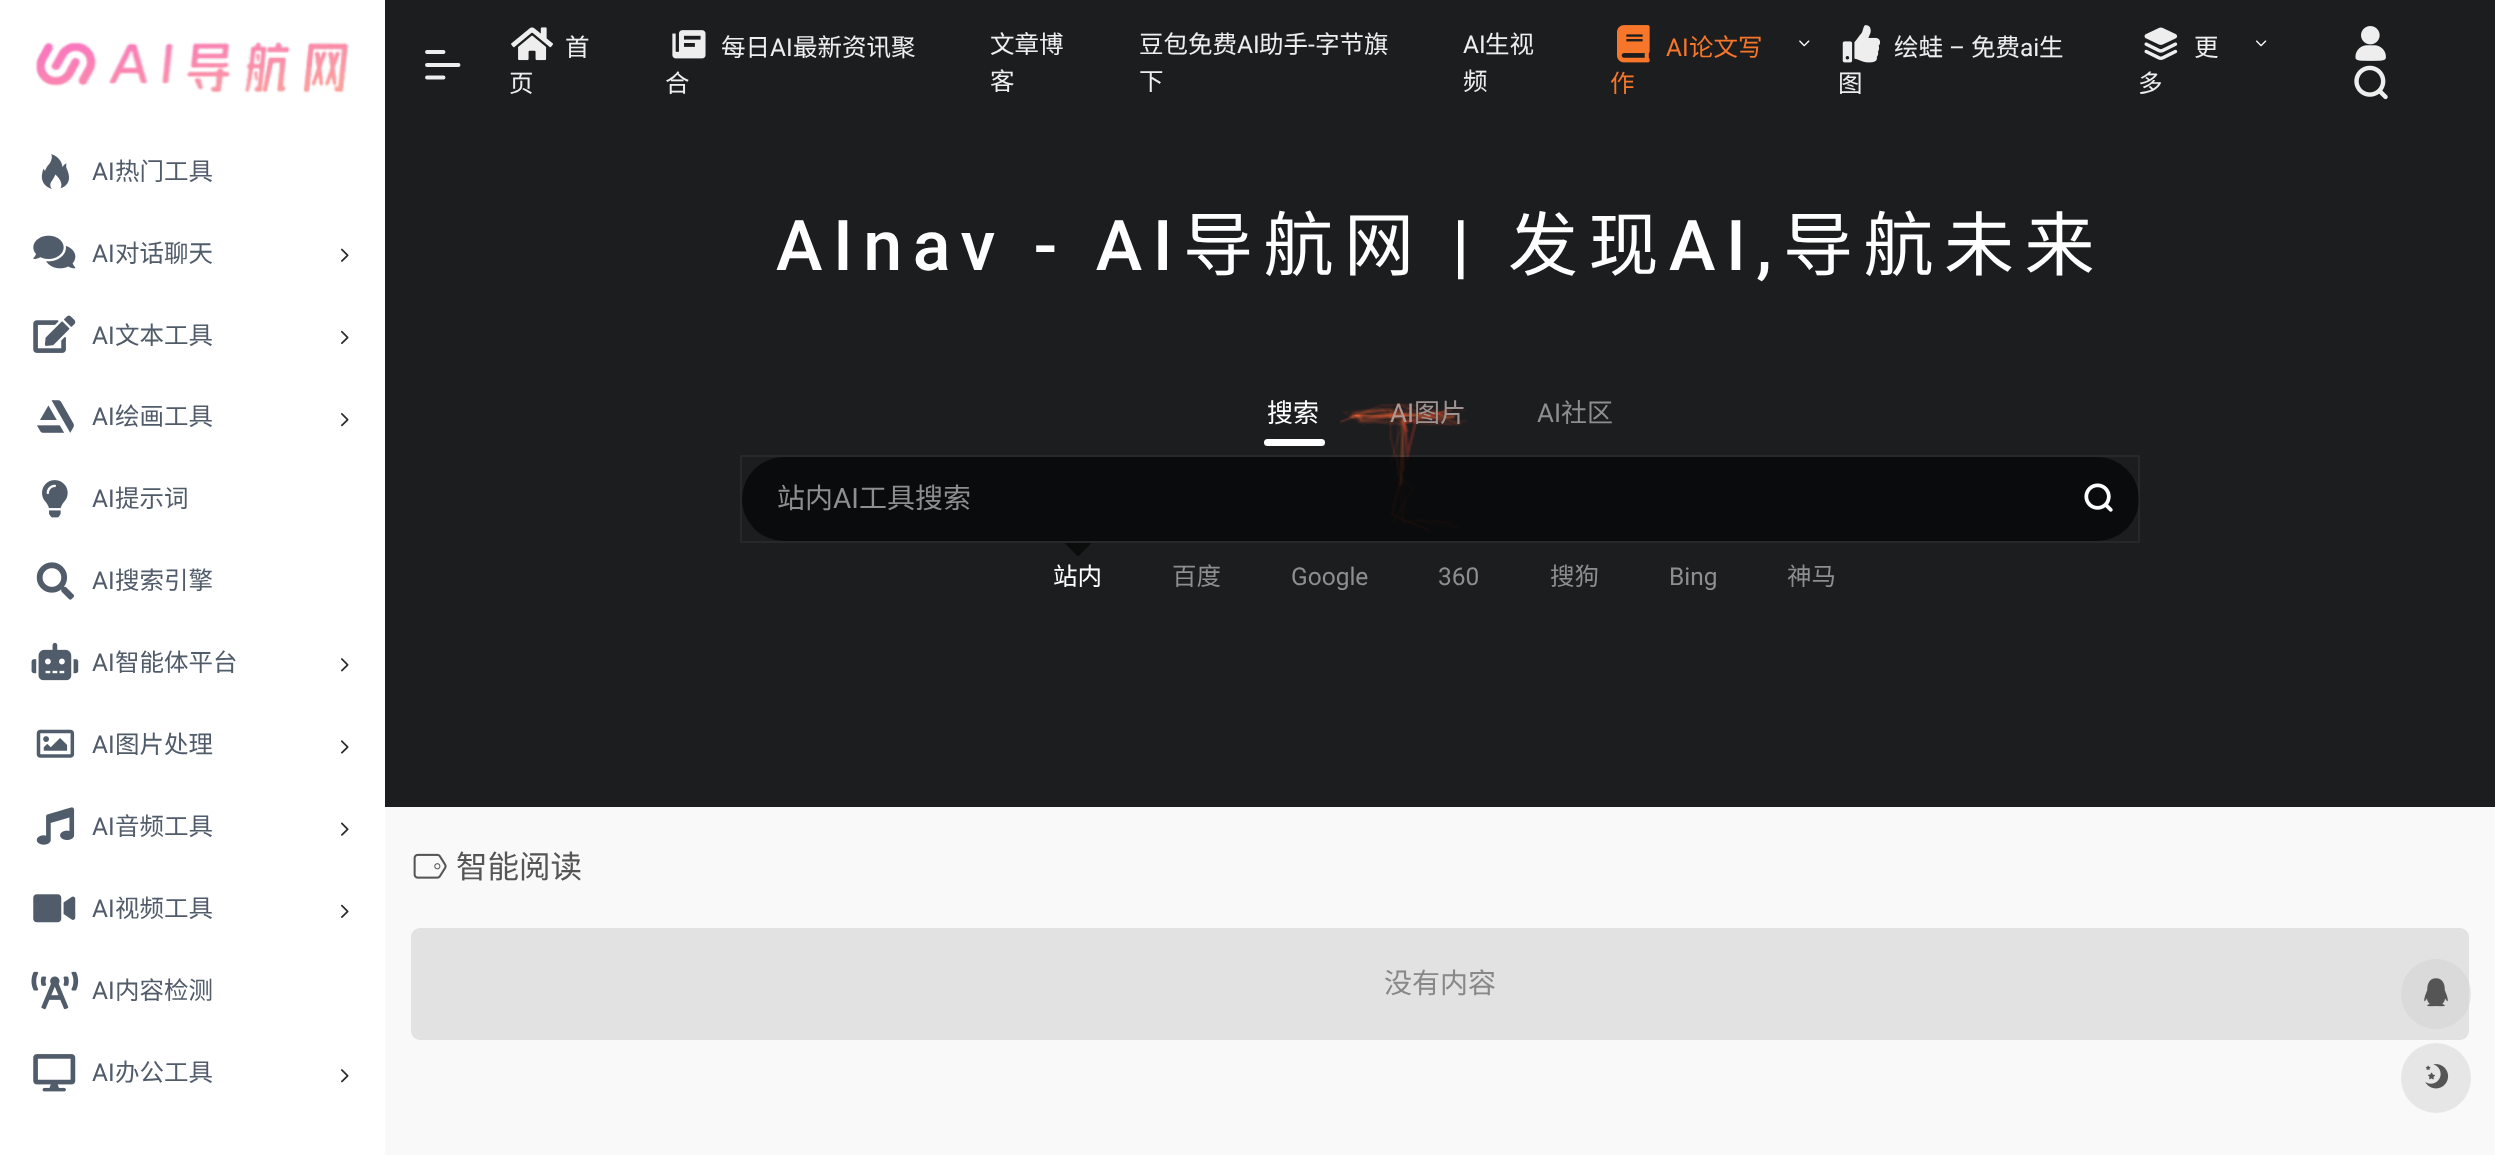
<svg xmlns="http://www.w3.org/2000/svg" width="2495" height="1155">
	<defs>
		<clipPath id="clip1"><rect x="1010" y="543" width="861" height="71" /></clipPath>
	</defs>
	<rect width="100%" height="100%" fill="#F9F9F9" />
	<rect x="0" y="0" width="385" height="1155" fill="#FFFFFF" />
	<image x="35" y="41" width="314" height="52" href="assets/img1.png" />
	<image x="41" y="154" width="28" height="35" href="assets/img2.png" />
	<text x="92" y="180" font-family="Roboto" font-size="24.5" fill="#515C6B">AI</text>
	<text x="115" y="180" font-family="Noto Sans CJK SC" font-size="24.5" fill="#515C6B">热门工具</text>
	<image x="33" y="235" width="43" height="34" href="assets/img3.png" />
	<text x="92" y="262" font-family="Roboto" font-size="24.5" fill="#515C6B">AI</text>
	<text x="115" y="262" font-family="Noto Sans CJK SC" font-size="24.5" fill="#515C6B">对话聊天</text>
	<image x="341" y="248" width="8" height="14" href="assets/img4.png" />
	<image x="33" y="315" width="43" height="38" href="assets/img5.png" />
	<text x="92" y="344" font-family="Roboto" font-size="24.5" fill="#515C6B">AI</text>
	<text x="115" y="344" font-family="Noto Sans CJK SC" font-size="24.5" fill="#515C6B">文本工具</text>
	<image x="341" y="330" width="8" height="14" href="assets/img6.png" />
	<image x="37" y="400" width="37" height="33" href="assets/img7.png" />
	<text x="92" y="425" font-family="Roboto" font-size="24.5" fill="#515C6B">AI</text>
	<text x="115" y="425" font-family="Noto Sans CJK SC" font-size="24.5" fill="#515C6B">绘画工具</text>
	<image x="341" y="413" width="8" height="14" href="assets/img8.png" />
	<image x="42" y="480" width="26" height="38" href="assets/img9.png" />
	<text x="92" y="507" font-family="Roboto" font-size="24.5" fill="#515C6B">AI</text>
	<text x="115" y="507" font-family="Noto Sans CJK SC" font-size="24.5" fill="#515C6B">提示词</text>
	<image x="36" y="562" width="39" height="38" href="assets/img10.png" />
	<text x="92" y="589" font-family="Roboto" font-size="24.5" fill="#515C6B">AI</text>
	<text x="115" y="589" font-family="Noto Sans CJK SC" font-size="24.5" fill="#515C6B">搜索引擎</text>
	<image x="31" y="642" width="48" height="39" href="assets/img11.png" />
	<text x="92" y="671" font-family="Roboto" font-size="24.5" fill="#515C6B">AI</text>
	<text x="115" y="671" font-family="Noto Sans CJK SC" font-size="24.5" fill="#515C6B">智能体平台</text>
	<image x="341" y="658" width="8" height="14" href="assets/img12.png" />
	<image x="36" y="729" width="39" height="29" href="assets/img13.png" />
	<text x="92" y="753" font-family="Roboto" font-size="24.5" fill="#515C6B">AI</text>
	<text x="115" y="753" font-family="Noto Sans CJK SC" font-size="24.5" fill="#515C6B">图片处理</text>
	<image x="341" y="740" width="8" height="14" href="assets/img14.png" />
	<image x="36" y="807" width="39" height="38" href="assets/img15.png" />
	<text x="92" y="835" font-family="Roboto" font-size="24.5" fill="#515C6B">AI</text>
	<text x="115" y="835" font-family="Noto Sans CJK SC" font-size="24.5" fill="#515C6B">音频工具</text>
	<image x="341" y="822" width="8" height="14" href="assets/img16.png" />
	<image x="33" y="894" width="43" height="29" href="assets/img17.png" />
	<text x="92" y="917" font-family="Roboto" font-size="24.5" fill="#515C6B">AI</text>
	<text x="115" y="917" font-family="Noto Sans CJK SC" font-size="24.5" fill="#515C6B">视频工具</text>
	<image x="341" y="904" width="8" height="14" href="assets/img18.png" />
	<image x="31" y="971" width="48" height="39" href="assets/img19.png" />
	<text x="92" y="999" font-family="Roboto" font-size="24.5" fill="#515C6B">AI</text>
	<text x="115" y="999" font-family="Noto Sans CJK SC" font-size="24.5" fill="#515C6B">内容检测</text>
	<image x="33" y="1054" width="43" height="38" href="assets/img20.png" />
	<text x="92" y="1081" font-family="Roboto" font-size="24.5" fill="#515C6B">AI</text>
	<text x="115" y="1081" font-family="Noto Sans CJK SC" font-size="24.5" fill="#515C6B">办公工具</text>
	<image x="341" y="1069" width="8" height="14" href="assets/img21.png" />
	<rect x="385" y="0" width="2110" height="807" fill="#1B1D1F" />
	<path d="M427 52H443.5M427 65H458.5M427 77.5H443.5" fill="none" stroke="#EEEEEE" stroke-width="3.9" stroke-linecap="round" stroke-linejoin="round" />
	<image x="511" y="27" width="42" height="34" href="assets/img22.png" />
	<g font-family="Noto Sans CJK SC" font-size="24.5" fill="#EEEEEE">
		<text x="565" y="56">首</text>
		<text x="509" y="92">页</text>
	</g>
	<image x="672" y="30" width="34" height="29" href="assets/img23.png" />
	<text x="721" y="56" font-family="Noto Sans CJK SC" font-size="24.5" fill="#EEEEEE">每日</text>
	<text x="770" y="56" font-family="Roboto" font-size="24.5" fill="#EEEEEE">AI</text>
	<g font-family="Noto Sans CJK SC" font-size="24.5" fill="#EEEEEE">
		<text x="793" y="56">最新资讯聚</text>
		<text x="665" y="92">合</text>
		<text x="990" y="53">文章博</text>
		<text x="990" y="90">客</text>
		<text x="1139" y="53">豆包免费</text>
	</g>
	<text x="1237" y="53" font-family="Roboto" font-size="24.5" fill="#EEEEEE">AI</text>
	<text x="1259" y="53" font-family="Noto Sans CJK SC" font-size="24.5" fill="#EEEEEE">助手</text>
	<text x="1308" y="53" font-family="Roboto" font-size="24.5" fill="#EEEEEE">-</text>
	<g font-family="Noto Sans CJK SC" font-size="24.5" fill="#EEEEEE">
		<text x="1315" y="53">字节旗</text>
		<text x="1139" y="90">下</text>
	</g>
	<text x="1463" y="53" font-family="Roboto" font-size="24.5" fill="#EEEEEE">AI</text>
	<g font-family="Noto Sans CJK SC" font-size="24.5" fill="#EEEEEE">
		<text x="1485" y="53">生视</text>
		<text x="1463" y="90">频</text>
	</g>
	<image x="1617" y="25" width="33" height="38" href="assets/img24.png" />
	<text x="1666" y="56" font-family="Roboto" font-size="24.5" fill="#F7762A">AI</text>
	<g font-family="Noto Sans CJK SC" font-size="24.5" fill="#F7762A">
		<text x="1689" y="56">论文写</text>
		<text x="1610" y="92">作</text>
	</g>
	<image x="1799" y="40" width="11" height="7" href="assets/img25.png" />
	<image x="1842" y="25" width="39" height="38" href="assets/img26.png" />
	<text x="1894" y="56" font-family="Noto Sans CJK SC" font-size="24.5" fill="#EEEEEE">绘蛙</text>
	<text x="1949" y="56" font-family="Roboto" font-size="24.5" fill="#EEEEEE">–</text>
	<text x="1971" y="56" font-family="Noto Sans CJK SC" font-size="24.5" fill="#EEEEEE">免费</text>
	<text x="2020" y="56" font-family="Roboto" font-size="24.5" fill="#EEEEEE">ai</text>
	<g font-family="Noto Sans CJK SC" font-size="24.5" fill="#EEEEEE">
		<text x="2039" y="56">生</text>
		<text x="1838" y="92">图</text>
	</g>
	<image x="2144" y="27" width="34" height="33" href="assets/img27.png" />
	<g font-family="Noto Sans CJK SC" font-size="24.5" fill="#EEEEEE">
		<text x="2194" y="56">更</text>
		<text x="2138" y="92">多</text>
	</g>
	<image x="2256" y="40" width="11" height="7" href="assets/img28.png" />
	<image x="2355" y="26" width="31" height="35" href="assets/img29.png" />
	<image x="2354" y="65" width="34" height="35" href="assets/img30.png" />
	<text x="776" y="270" font-family="Roboto" font-size="70" font-weight="500" letter-spacing="10.5" fill="#FFFFFF">AInav - AI</text>
	<text x="1183" y="270" font-family="Noto Sans CJK SC" font-size="70" letter-spacing="10.5" fill="#FFFFFF">导航网</text>
	<text x="1452" y="270" font-family="Roboto" font-size="70" font-weight="500" letter-spacing="10.5" fill="#FFFFFF">|</text>
	<text x="1508" y="270" font-family="Noto Sans CJK SC" font-size="70" letter-spacing="10.5" fill="#FFFFFF">发现</text>
	<text x="1669" y="270" font-family="Roboto" font-size="70" font-weight="500" letter-spacing="10.5" fill="#FFFFFF">AI,</text>
	<text x="1783" y="270" font-family="Noto Sans CJK SC" font-size="70" letter-spacing="10.5" fill="#FFFFFF">导航未来</text>
	<text x="1267" y="422" font-family="Noto Sans CJK SC" font-size="26" fill="#FFFFFF">搜索</text>
	<image x="1339" y="402" width="129" height="130" href="assets/img32.png" />
	<text x="1390" y="422" font-family="Roboto" font-size="26" fill="#B09892">AI</text>
	<text x="1414" y="422" font-family="Noto Sans CJK SC" font-size="26" fill="#9E9390">图片</text>
	<text x="1537" y="422" font-family="Roboto" font-size="26" fill="#8D8E8F">AI</text>
	<text x="1561" y="422" font-family="Noto Sans CJK SC" font-size="26" fill="#8D8E8F">社区</text>
	<rect x="1264" y="439" width="61" height="7" rx="3.5" fill="#FFFFFF" />
	<rect x="742" y="457" width="1397" height="84" rx="42" fill="#000000" fill-opacity="0.6" />
	<rect x="741" y="456" width="1398" height="86" fill="none" stroke="#FFFFFF" stroke-opacity="0.05" stroke-width="2" />
	<text x="777" y="508" font-family="Noto Sans CJK SC" font-size="28" fill="#8D8E8F">站内</text>
	<text x="833" y="508" font-family="Roboto" font-size="28" fill="#8D8E8F">AI</text>
	<text x="859" y="508" font-family="Noto Sans CJK SC" font-size="28" fill="#8D8E8F">工具搜索</text>
	<image x="2084" y="483" width="29" height="29" href="assets/img31.png" />
	<g clip-path="url(#clip1)">
		<path d="M1064 542.5H1092L1078 556.5Z" fill="#0B0C0C" />
	</g>
	<text x="1053" y="585" font-family="Noto Sans CJK SC" font-size="24.5" fill="#FFFFFF">站内</text>
	<text x="1172" y="585" font-family="Noto Sans CJK SC" font-size="24.5" fill="#8D8E8F">百度</text>
	<g font-family="Roboto" font-size="24.5" fill="#8D8E8F">
		<text x="1291" y="585">Google</text>
		<text x="1438" y="585">360</text>
	</g>
	<text x="1550" y="585" font-family="Noto Sans CJK SC" font-size="24.5" fill="#8D8E8F">搜狗</text>
	<text x="1669" y="585" font-family="Roboto" font-size="24.5" fill="#8D8E8F">Bing</text>
	<text x="1787" y="585" font-family="Noto Sans CJK SC" font-size="24.5" fill="#8D8E8F">神马</text>
	<image x="413" y="853" width="34" height="26" href="assets/img33.png" />
	<text x="456" y="878" font-family="Noto Sans CJK SC" font-size="31.5" fill="#555555">智能阅读</text>
	<rect x="411" y="928" width="2058" height="112" rx="9" fill="#E2E2E2" />
	<text x="1384" y="993" font-family="Noto Sans CJK SC" font-size="28" fill="#888888">没有内容</text>
	<circle cx="2436" cy="994" r="35" fill="#D2D2D2" fill-opacity="0.5" />
	<image x="2424" y="978" width="24" height="29" href="assets/img34.png" />
	<circle cx="2436" cy="1078" r="35" fill="#E6E6E6" />
	<image x="2425" y="1064" width="24" height="25" href="assets/img35.png" />
</svg>
